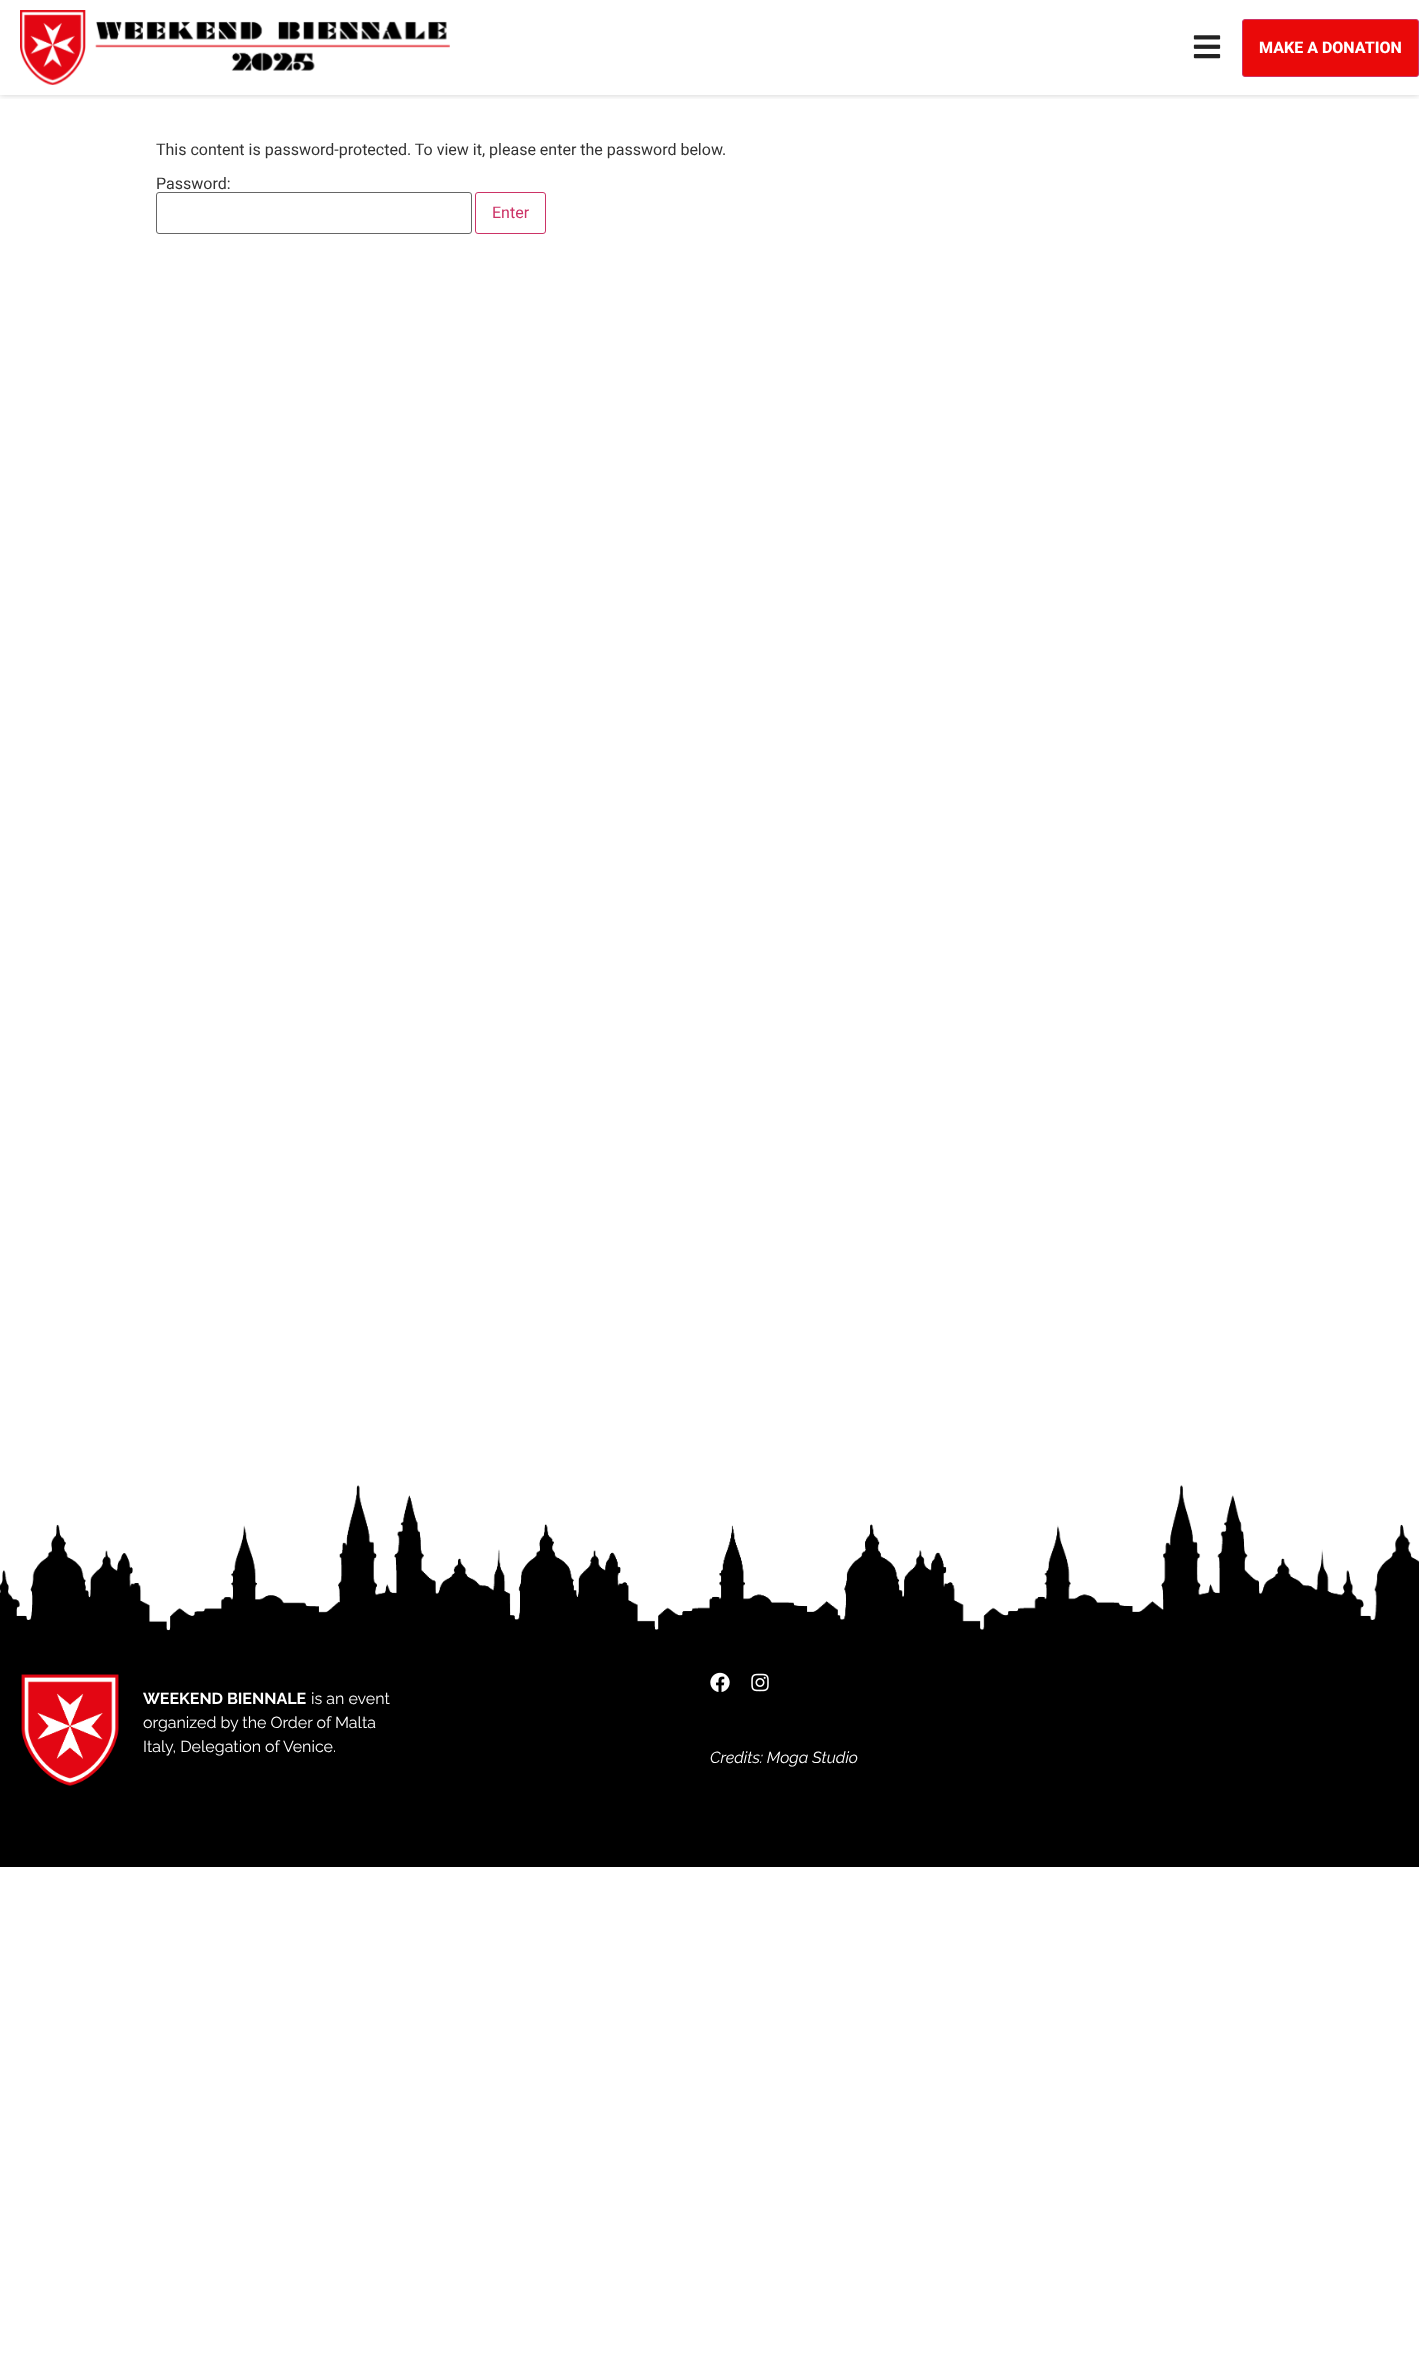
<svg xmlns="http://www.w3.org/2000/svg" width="1419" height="2366">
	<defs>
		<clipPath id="clip1"><rect x="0" y="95" width="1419" height="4" /></clipPath>
	</defs>
	<rect width="100%" height="100%" fill="#FFFFFF" />
	<g clip-path="url(#clip1)">
		<rect x="0" y="0" width="1419" height="95" fill="#000000" fill-opacity="0.2" filter="blur(3px)" />
	</g>
	<image x="20" y="10" width="430" height="75" href="assets/img1.png" />
	<image x="1193" y="35" width="28" height="24" href="assets/img2.png" />
	<rect x="1242" y="19" width="177" height="58" fill="#FAFAFA" />
	<rect x="1242.5" y="19.5" width="176" height="57" rx="2.5" fill="#EA0909" stroke="#CC3366" />
	<text x="1259" y="53" font-family="Roboto" font-size="16" font-weight="800" fill="#FFFFFF">MAKE A DONATION</text>
	<g font-family="Roboto" font-size="16" fill="#333333">
		<text x="156" y="155">This content is password-protected. To view it, please enter the password below.</text>
		<text x="156" y="189">Password:</text>
	</g>
	<rect x="156.5" y="192.5" width="315" height="41" rx="2.5" fill="none" stroke="#666666" />
	<rect x="475.5" y="192.5" width="70" height="41" rx="2.5" fill="none" stroke="#CC3366" />
	<text x="492" y="218" font-family="Roboto" font-size="16" fill="#CC3366">Enter</text>
	<image x="0" y="1485" width="1419" height="168" href="assets/img3.png" />
	<rect x="0" y="1653" width="1419" height="214" fill="#000000" />
	<image x="21" y="1674" width="98" height="112" href="assets/img4.png" />
	<text x="143" y="1704" font-family="Raleway" font-size="16" font-weight="700" fill="#FFFFFF">WEEKEND BIENNALE</text>
	<g font-family="Raleway" font-size="16" fill="#FFFFFF">
		<text x="311" y="1704">is an event</text>
		<text x="143" y="1728">organized by the Order of Malta</text>
		<text x="143" y="1752">Italy, Delegation of Venice.</text>
	</g>
	<image x="710" y="1672" width="20" height="20" href="assets/img5.png" />
	<image x="751" y="1673" width="18" height="19" href="assets/img6.png" />
	<text x="710" y="1763" font-family="Raleway" font-size="16" font-style="italic" fill="#FFFFFF">Credits: Moga Studio</text>
</svg>
